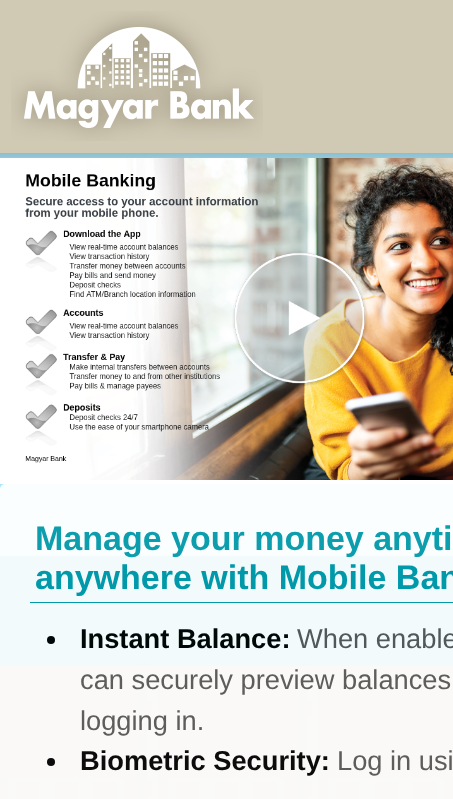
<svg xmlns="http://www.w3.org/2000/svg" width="453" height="799">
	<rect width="100%" height="100%" fill="#D0C9B4" />
	<image x="0" y="153" width="453" height="646" href="assets/img1.png" />
	<image x="11" y="11" width="252" height="130" href="assets/img2.png" />
	<rect x="0" y="158" width="453" height="326" fill="#FFFFFF" />
	<image x="25" y="158" width="428" height="322" href="assets/img3.png" />
	<rect x="0" y="484" width="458" height="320" rx="5" fill="#FFFFFF" fill-opacity="0.95" />
	<rect x="30" y="602" width="423" height="1" fill="#0099AA" />
	<text x="35" y="550" font-family="Liberation Sans" font-size="34" font-weight="700" fill="#0D9EAE">Manage your money anyti</text>
	<text x="35" y="589" font-family="Liberation Sans" font-size="34" font-weight="700" fill="#0099AA">anywhere with Mobile Ban</text>
	<circle cx="51" cy="640" r="4" fill="#000808" />
	<text x="80" y="648" font-family="Liberation Sans" font-size="27.25" font-weight="700" fill="#000808">Instant Balance:</text>
	<text x="297" y="648" font-family="Liberation Sans" font-size="27.25" fill="#515859">When enable</text>
	<g font-family="Liberation Sans" font-size="27.25" fill="#5D5D5D">
		<text x="80" y="689">can securely preview balances</text>
		<text x="80" y="730">logging in.</text>
	</g>
	<circle cx="51" cy="762" r="4" fill="#0C0C0C" />
	<text x="80" y="770" font-family="Liberation Sans" font-size="27.25" font-weight="700" fill="#0C0C0C">Biometric Security:</text>
	<text x="337" y="770" font-family="Liberation Sans" font-size="27.25" fill="#5D5D5D">Log in usi</text>
</svg>
